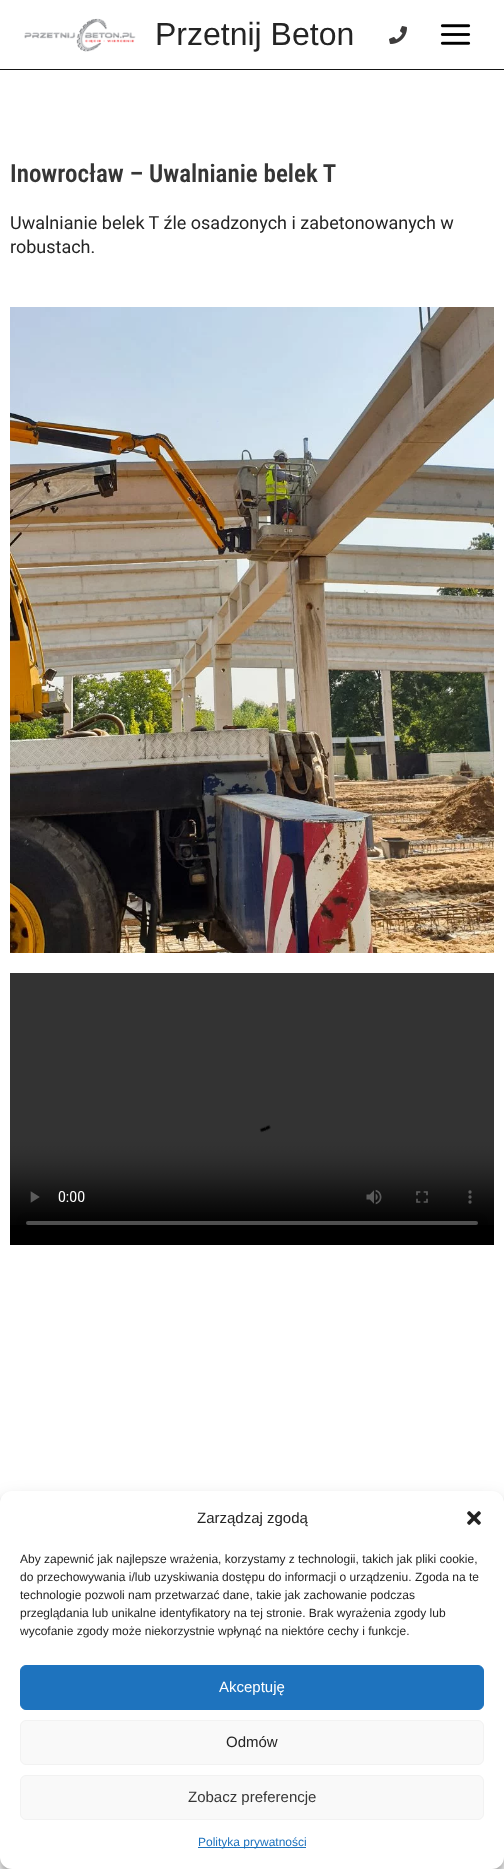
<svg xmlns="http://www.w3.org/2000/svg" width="504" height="1869">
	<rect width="100%" height="100%" fill="#FFFFFF" />
	<rect x="0" y="69" width="504" height="1" fill="#151515" />
	<image x="24" y="18" width="112" height="34" href="assets/img1.png" />
	<text x="155" y="45" font-family="Liberation Sans" font-size="32" fill="#242424">Przetnij Beton</text>
	<image x="389" y="26" width="18" height="18" href="assets/img2.png" />
	<image x="440" y="24" width="31" height="21" href="assets/img3.png" />
	<text x="10" y="182" font-family="Roboto Condensed" font-size="25" font-weight="600" fill="#363636">Inowrocław – Uwalnianie belek T</text>
	<g font-family="Roboto" font-size="18" fill="#242424">
		<text x="10" y="229">Uwalnianie belek T źle osadzonych i zabetonowanych w</text>
		<text x="10" y="253">robustach.</text>
	</g>
	<image x="10" y="307" width="484" height="646" href="assets/img4.png" />
	<rect x="10" y="1225" width="484" height="20" fill="#000000" />
	<image x="10" y="973" width="484" height="252" href="assets/img5.png" />
	<rect x="0" y="1497" width="504" height="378" rx="12" fill="#000000" fill-opacity="0.23" filter="blur(3px)" />
	<rect x="0" y="1501" width="504" height="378" rx="12" fill="#000000" fill-opacity="0.19" filter="blur(10px)" />
	<rect x="0" y="1491" width="504" height="378" rx="12" fill="#FFFFFF" />
	<text x="197" y="1523" font-family="Liberation Sans" font-size="15" fill="#242424">Zarządzaj zgodą</text>
	<image x="467" y="1511" width="14" height="14" href="assets/img6.png" />
	<g font-family="Liberation Sans" font-size="12" fill="#242424">
		<text x="20" y="1563">Aby zapewnić jak najlepsze wrażenia, korzystamy z technologii, takich jak pliki cookie,</text>
		<text x="20" y="1581">do przechowywania i/lub uzyskiwania dostępu do informacji o urządzeniu. Zgoda na te</text>
		<text x="20" y="1599">technologie pozwoli nam przetwarzać dane, takie jak zachowanie podczas</text>
		<text x="20" y="1617">przeglądania lub unikalne identyfikatory na tej stronie. Brak wyrażenia zgody lub</text>
		<text x="20" y="1635">wycofanie zgody może niekorzystnie wpłynąć na niektóre cechy i funkcje.</text>
	</g>
	<rect x="20.5" y="1665.5" width="463" height="44" rx="5.5" fill="#1E73BE" stroke="#1E73BE" />
	<text x="219" y="1692" font-family="Liberation Sans" font-size="15" fill="#FFFFFF">Akceptuję</text>
	<rect x="20.5" y="1720.5" width="463" height="44" rx="5.5" fill="#F9F9F9" stroke="#F2F2F2" />
	<text x="226" y="1747" font-family="Liberation Sans" font-size="15" fill="#242424">Odmów</text>
	<rect x="20.5" y="1775.5" width="463" height="44" rx="5.5" fill="#F9F9F9" stroke="#F2F2F2" />
	<text x="188" y="1802" font-family="Liberation Sans" font-size="15" fill="#363636">Zobacz preferencje</text>
	<rect x="198" y="1847" width="108" height="1" fill="#1E73BE" />
	<text x="198" y="1846" font-family="Liberation Sans" font-size="12" fill="#1E73BE">Polityka prywatności</text>
</svg>
